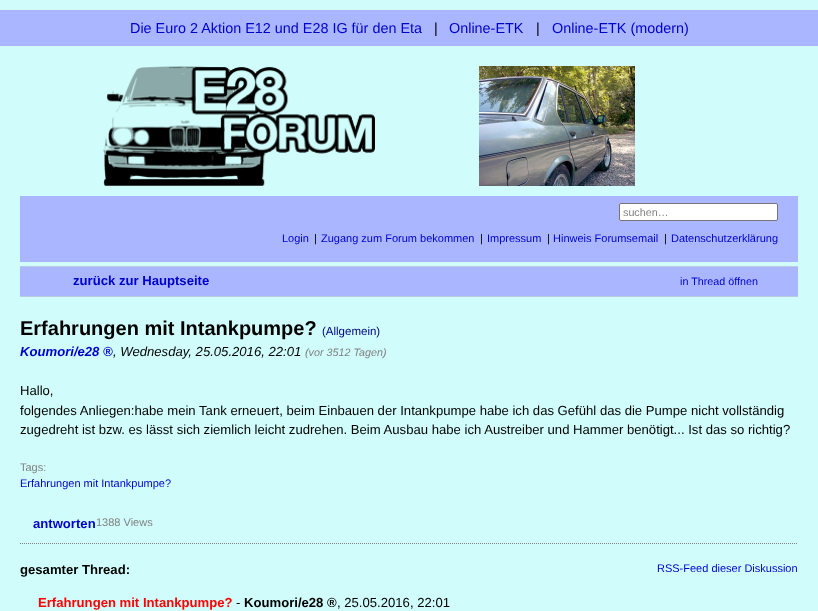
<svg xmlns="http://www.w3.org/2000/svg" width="818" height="611">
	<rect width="100%" height="100%" fill="#D0FDFB" />
	<rect x="0" y="10" width="818" height="36" fill="#AAB6FF" />
	<text x="130" y="33" font-family="Liberation Sans" font-size="14.4" fill="#0000CC">Die Euro 2 Aktion E12 und E28 IG für den Eta</text>
	<text x="434" y="33" font-family="Liberation Sans" font-size="14.4" fill="#000000">|</text>
	<text x="449" y="33" font-family="Liberation Sans" font-size="14.4" fill="#0000CC">Online-ETK</text>
	<text x="536" y="33" font-family="Liberation Sans" font-size="14.4" fill="#000000">|</text>
	<text x="552" y="33" font-family="Liberation Sans" font-size="14.4" fill="#0000CC">Online-ETK (modern)</text>
	<image x="103" y="66" width="272" height="120" href="assets/img1.png" />
	<image x="479" y="66" width="156" height="120" href="assets/img2.png" />
	<rect x="20" y="196" width="778" height="66" fill="#AAB6FF" />
	<rect x="619.5" y="203.5" width="158" height="17" rx="1.5" fill="#FFFFFF" stroke="#767676" />
	<text x="623" y="216" font-family="Liberation Sans" font-size="10.75" fill="#808080">suchen…</text>
	<text x="282" y="242" font-family="Liberation Sans" font-size="11" fill="#0000CC">Login</text>
	<text x="314" y="242" font-family="Liberation Sans" font-size="11" fill="#000000">|</text>
	<text x="321" y="242" font-family="Liberation Sans" font-size="11" fill="#0000CC">Zugang zum Forum bekommen</text>
	<text x="480" y="242" font-family="Liberation Sans" font-size="11" fill="#000000">|</text>
	<text x="487" y="242" font-family="Liberation Sans" font-size="11" fill="#0000CC">Impressum</text>
	<text x="547" y="242" font-family="Liberation Sans" font-size="11" fill="#000000">|</text>
	<text x="553" y="242" font-family="Liberation Sans" font-size="11" fill="#0000CC">Hinweis Forumsemail</text>
	<text x="664" y="242" font-family="Liberation Sans" font-size="11" fill="#000000">|</text>
	<text x="671" y="242" font-family="Liberation Sans" font-size="11" fill="#0000CC">Datenschutzerklärung</text>
	<rect x="20" y="267" width="778" height="29" fill="#AAB6FF" />
	<rect x="20" y="266" width="778" height="1" fill="#BACBDF" />
	<rect x="20" y="296" width="778" height="1" fill="#BACBDF" />
	<text x="73" y="285" font-family="Liberation Sans" font-size="13.12" font-weight="700" fill="#0000CC">zurück zur Hauptseite</text>
	<text x="680" y="285" font-family="Liberation Sans" font-size="10.75" fill="#0000CC">in Thread öffnen</text>
	<text x="20" y="335" font-family="Liberation Sans" font-size="20" font-weight="700" fill="#000000">Erfahrungen mit Intankpumpe?</text>
	<text x="322" y="335" font-family="Liberation Sans" font-size="11.5" fill="#000080">(Allgemein)</text>
	<text x="20" y="356" font-family="Liberation Sans" font-size="13.12" font-weight="700" font-style="italic" fill="#0000CC">Koumori/e28 ®</text>
	<text x="113" y="356" font-family="Liberation Sans" font-size="13.12" font-style="italic" fill="#000000">, Wednesday, 25.05.2016, 22:01</text>
	<text x="305" y="356" font-family="Liberation Sans" font-size="10.75" font-style="italic" fill="#808080">(vor 3512 Tagen)</text>
	<g font-family="Liberation Sans" font-size="13.12" fill="#000000">
		<text x="20" y="395">Hallo,</text>
		<text x="20" y="415">folgendes Anliegen:habe mein Tank erneuert, beim Einbauen der Intankpumpe habe ich das Gefühl das die Pumpe nicht vollständig</text>
		<text x="20" y="434">zugedreht ist bzw. es lässt sich ziemlich leicht zudrehen. Beim Ausbau habe ich Austreiber und Hammer benötigt... Ist das so richtig?</text>
	</g>
	<text x="20" y="471" font-family="Liberation Sans" font-size="11" fill="#808080">Tags:</text>
	<text x="20" y="487" font-family="Liberation Sans" font-size="11" fill="#0000CC">Erfahrungen mit Intankpumpe?</text>
	<text x="33" y="528" font-family="Liberation Sans" font-size="13.12" font-weight="700" fill="#0000CC">antworten</text>
	<text x="96" y="526" font-family="Liberation Sans" font-size="11" fill="#808080">1388 Views</text>
	<path d="M20 543.5H798" fill="none" stroke="#808080" stroke-dasharray="1 1" />
	<text x="20" y="574" font-family="Liberation Sans" font-size="13.12" font-weight="700" fill="#000000">gesamter Thread:</text>
	<text x="657" y="572" font-family="Liberation Sans" font-size="11" fill="#0000CC">RSS-Feed dieser Diskussion</text>
	<text x="38" y="607" font-family="Liberation Sans" font-size="13.12" font-weight="700" fill="#FF0000">Erfahrungen mit Intankpumpe?</text>
	<text x="236" y="607" font-family="Liberation Sans" font-size="13.12" fill="#000000">-</text>
	<text x="244" y="607" font-family="Liberation Sans" font-size="13.12" font-weight="700" fill="#000000">Koumori/e28 ®</text>
	<text x="337" y="607" font-family="Liberation Sans" font-size="13.12" fill="#000000">, 25.05.2016, 22:01</text>
</svg>
